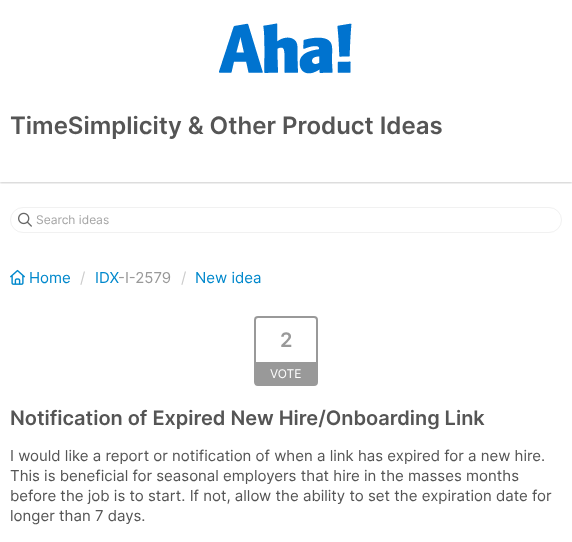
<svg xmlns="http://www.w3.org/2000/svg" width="572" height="542">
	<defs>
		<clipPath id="clip1"><rect x="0" y="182" width="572" height="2" /></clipPath>
	</defs>
	<rect width="100%" height="100%" fill="#FFFFFF" />
	<g clip-path="url(#clip1)">
		<rect x="0" y="1" width="572" height="182" fill="#000000" fill-opacity="0.2" filter="blur(1px)" />
	</g>
	<image x="219" y="23" width="133" height="51" href="assets/img1.png" />
	<text x="10" y="134" font-family="Inter" font-size="24" font-weight="600" fill="#555555">TimeSimplicity &amp; Other Product Ideas</text>
	<rect x="10.5" y="207.5" width="551" height="25" rx="12.5" fill="none" stroke="#F1F1F1" />
	<image x="18" y="212" width="14" height="15" href="assets/img2.png" />
	<text x="36" y="224" font-family="Inter" font-size="12" fill="#A5A5A5">Search ideas</text>
	<image x="10" y="269" width="15" height="16" href="assets/img3.png" />
	<text x="29" y="283" font-family="Inter" font-size="15" fill="#0088CC">Home</text>
	<text x="80" y="283" font-family="Inter" font-size="15" fill="#CCCCCC">/</text>
	<text x="95" y="283" font-family="Inter" font-size="15" fill="#0088CC">IDX</text>
	<text x="118" y="283" font-family="Inter" font-size="15" fill="#999999">-I-2579</text>
	<text x="181" y="283" font-family="Inter" font-size="15" fill="#CCCCCC">/</text>
	<text x="195" y="283" font-family="Inter" font-size="15" fill="#0088CC">New idea</text>
	<rect x="255" y="317" width="62" height="68" rx="3" fill="none" stroke="#999999" stroke-width="2" />
	<text x="280" y="347" font-family="Inter" font-size="20" font-weight="600" fill="#999999">2</text>
	<rect x="256" y="362" width="60" height="22" fill="#999999" />
	<text x="270" y="378" font-family="Inter" font-size="12" fill="#FFFFFF">VOTE</text>
	<text x="10" y="425" font-family="Inter" font-size="20" font-weight="600" fill="#555555">Notification of Expired New Hire/Onboarding Link</text>
	<g font-family="Inter" font-size="15" fill="#555555">
		<text x="10" y="461">I would like a report or notification of when a link has expired for a new hire.</text>
		<text x="10" y="481">This is beneficial for seasonal employers that hire in the masses months</text>
		<text x="10" y="501">before the job is to start. If not, allow the ability to set the expiration date for</text>
		<text x="10" y="521">longer than 7 days.</text>
	</g>
</svg>
